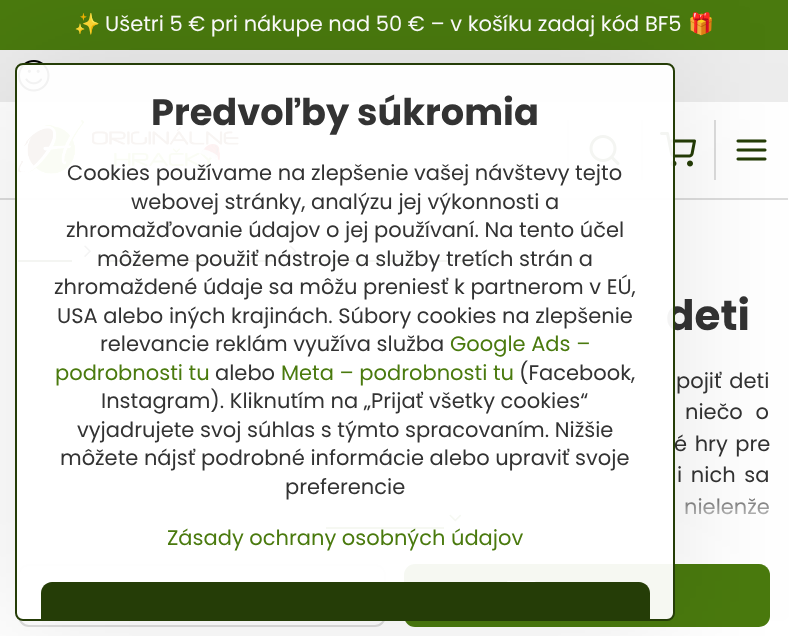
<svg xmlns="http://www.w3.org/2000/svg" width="809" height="636">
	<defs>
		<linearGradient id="g1" gradientUnits="userSpaceOnUse" x1="394" y1="534" x2="394" y2="482"><stop offset="0" stop-color="#FFFFFF" /><stop offset="1" stop-color="#FFFFFF" stop-opacity="0" /></linearGradient>
		<clipPath id="clip1"><path d="M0 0H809V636H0ZM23 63H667C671.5 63 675 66.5 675 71V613C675 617.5 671.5 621 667 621H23C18.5 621 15 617.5 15 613V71C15 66.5 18.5 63 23 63Z" clip-rule="evenodd" /></clipPath>
	</defs>
	<rect width="100%" height="100%" fill="#FFFFFF" />
	<rect x="0" y="0" width="788" height="50" fill="#4A7A0E" />
	<text x="74" y="31" font-family="Noto Color Emoji" font-size="21" fill="#FFFFFF">✨</text>
	<text x="105" y="31" font-family="Poppins" font-size="21" fill="#FFFFFF">Ušetri 5 € pri nákupe nad 50 € – v košíku zadaj kód BF5</text>
	<text x="688" y="31" font-family="Noto Color Emoji" font-size="21" fill="#FFFFFF">🎁</text>
	<rect x="0" y="50" width="788" height="52" fill="#EDEDED" />
	<image x="18" y="60" width="32" height="32" href="assets/img1.png" />
	<rect x="0" y="198" width="788" height="2" fill="#DDDDDD" />
	<image x="18" y="120" width="221" height="54" href="assets/img2.png" />
	<rect x="567" y="120" width="2" height="60" fill="#DDDDDD" />
	<image x="589" y="135" width="31" height="30" href="assets/img3.png" />
	<rect x="641" y="120" width="2" height="60" fill="#DDDDDD" />
	<image x="660" y="132" width="36" height="35" href="assets/img4.png" />
	<rect x="714" y="120" width="2" height="60" fill="#DDDDDD" />
	<image x="736" y="139" width="31" height="22" href="assets/img5.png" />
	<rect x="18" y="260" width="54" height="2" fill="#253D07" />
	<image x="84" y="245" width="7" height="12" href="assets/img6.png" />
	<rect x="105" y="260" width="171" height="2" fill="#253D07" />
	<image x="289" y="245" width="8" height="12" href="assets/img7.png" />
	<rect x="309" y="260" width="167" height="2" fill="#253D07" />
	<text x="666" y="330" font-family="Poppins" font-size="42" font-weight="700" fill="#333333">deti</text>
	<g font-family="Poppins" font-size="21" fill="#333333">
		<text x="676" y="388" word-spacing="2">pojiť deti</text>
		<text x="685" y="419" word-spacing="7">niečo o</text>
		<text x="674" y="451" word-spacing="2">é hry pre</text>
		<text x="677" y="482" word-spacing="3">i nich sa</text>
		<text x="684" y="514" word-spacing="5">nielenže</text>
	</g>
	<rect x="685" y="498" width="84" height="17" fill="url(#g1)" />
	<image x="449" y="514" width="13" height="8" href="assets/img8.png" />
	<rect x="326" y="527" width="118" height="2" fill="#4A7A0E" />
	<rect x="19" y="565" width="366" height="61" rx="10" fill="none" stroke="#DDDDDD" stroke-width="2" />
	<rect x="404" y="564" width="366" height="63" rx="11" fill="#4A7A0E" />
	<image x="507" y="581" width="29" height="1" href="assets/img9.png" />
	<g clip-path="url(#clip1)">
		<rect x="15" y="63" width="660" height="558" rx="8" fill="#000000" fill-opacity="0.1" filter="blur(60px)" />
	</g>
	<rect x="16" y="64" width="658" height="556" rx="7" fill="#FFFFFF" fill-opacity="0.95" stroke="#253D07" stroke-width="2" />
	<text x="151" y="125" font-family="Poppins" font-size="36.75" font-weight="700" fill="#333333">Predvoľby súkromia</text>
	<g font-family="Poppins" font-size="21" fill="#333333">
		<text x="67" y="180">Cookies používame na zlepšenie vašej návštevy tejto</text>
		<text x="131" y="209">webovej stránky, analýzu jej výkonnosti a</text>
		<text x="66" y="237">zhromažďovanie údajov o jej používaní. Na tento účel</text>
		<text x="97" y="266">môžeme použiť nástroje a služby tretích strán a</text>
		<text x="54" y="294">zhromaždené údaje sa môžu preniesť k partnerom v EÚ,</text>
		<text x="57" y="323">USA alebo iných krajinách. Súbory cookies na zlepšenie</text>
		<text x="100" y="351">relevancie reklám využíva služba</text>
	</g>
	<g font-family="Poppins" font-size="21" fill="#4A7A0E">
		<text x="450" y="351">Google Ads –</text>
		<text x="55" y="380">podrobnosti tu</text>
	</g>
	<text x="215" y="380" font-family="Poppins" font-size="21" fill="#333333">alebo</text>
	<text x="281" y="380" font-family="Poppins" font-size="21" fill="#4A7A0E">Meta – podrobnosti tu</text>
	<g font-family="Poppins" font-size="21" fill="#333333">
		<text x="519" y="380">(Facebook,</text>
		<text x="101" y="408">Instagram). Kliknutím na „Prijať všetky cookies“</text>
		<text x="77" y="437">vyjadrujete svoj súhlas s týmto spracovaním. Nižšie</text>
		<text x="60" y="465">môžete nájsť podrobné informácie alebo upraviť svoje</text>
		<text x="285" y="494">preferencie</text>
	</g>
	<text x="167" y="545" font-family="Poppins" font-size="21" fill="#4A7A0E">Zásady ochrany osobných údajov</text>
	<path d="M52 582H639C645 582 650 587 650 593V620H41V593C41 587 46 582 52 582Z" fill="#253D07" />
</svg>
